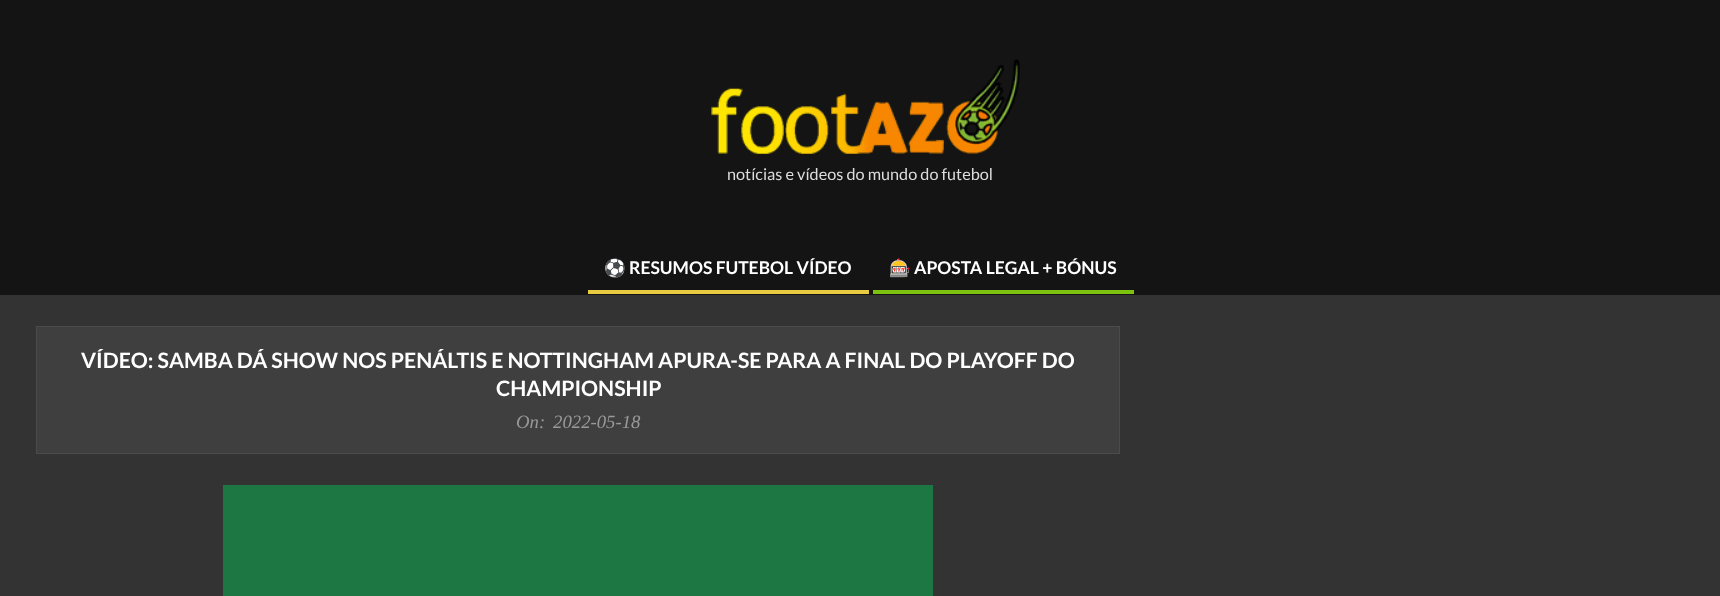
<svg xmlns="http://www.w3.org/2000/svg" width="1720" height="596">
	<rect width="100%" height="100%" fill="#141414" />
	<image x="711" y="59" width="309" height="95" href="assets/img1.png" />
	<text x="727" y="180" font-family="Lato" font-size="16.25" fill="#DDDDDD">notícias e vídeos do mundo do futebol</text>
	<text x="604" y="274" font-family="Noto Color Emoji" font-size="17.5" font-weight="700" fill="#FFFFFF">⚽</text>
	<text x="629" y="274" font-family="Lato" font-size="17.5" font-weight="700" fill="#FFFFFF">RESUMOS FUTEBOL VÍDEO</text>
	<rect x="588" y="290" width="281" height="4" fill="#E9CB42" />
	<text x="889" y="274" font-family="Noto Color Emoji" font-size="17.5" font-weight="700" fill="#FFFFFF">🎰</text>
	<text x="914" y="274" font-family="Lato" font-size="17.5" font-weight="700" fill="#FFFFFF">APOSTA LEGAL + BÓNUS</text>
	<rect x="873" y="290" width="261" height="4" fill="#7DC20F" />
	<rect x="0" y="295" width="1720" height="301" fill="#333333" />
	<rect x="36.5" y="326.5" width="1083" height="127" fill="#3F3F3F" stroke="#4B4B4B" />
	<g font-family="Lato" font-size="21.25" font-weight="700" fill="#FFFFFF">
		<text x="81" y="368">VÍDEO: SAMBA DÁ SHOW NOS PENÁLTIS E NOTTINGHAM APURA-SE PARA A FINAL DO PLAYOFF DO</text>
		<text x="496" y="396">CHAMPIONSHIP</text>
	</g>
	<g font-family="Liberation Serif" font-size="18.75" font-style="italic" fill="#999999">
		<text x="516" y="428">On:</text>
		<text x="553" y="428">2022-05-18</text>
	</g>
	<rect x="223" y="485" width="710" height="111" fill="#1D7743" />
</svg>
